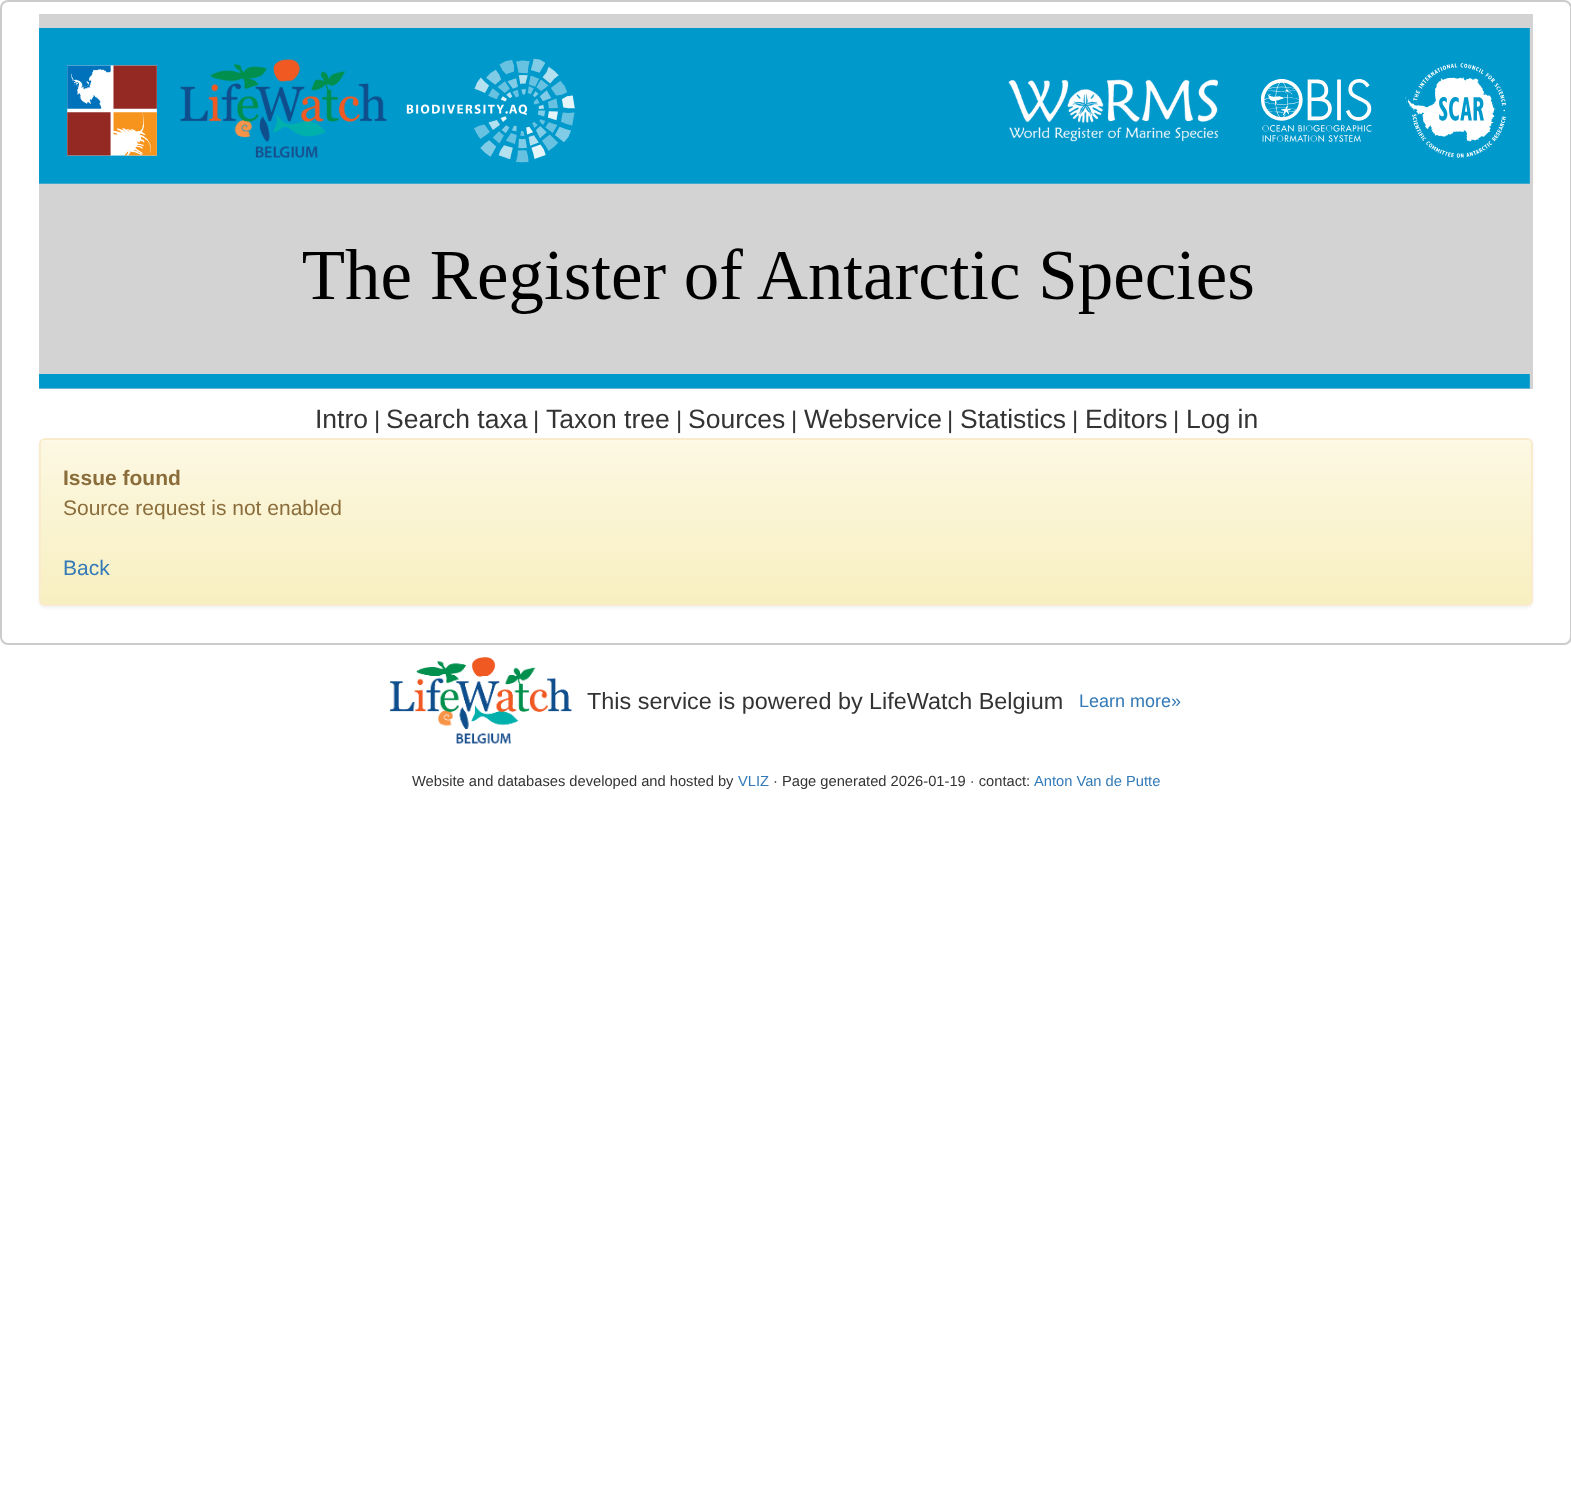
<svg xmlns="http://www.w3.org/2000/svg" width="1571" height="1509">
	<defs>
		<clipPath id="clip1"><rect x="39" y="438" width="1494" height="168" rx="6" /></clipPath>
		<linearGradient id="g1" gradientUnits="userSpaceOnUse" x1="786" y1="439" x2="786" y2="605"><stop offset="0" stop-color="#FCF8E3" /><stop offset="1" stop-color="#F8EFC0" /></linearGradient>
	</defs>
	<rect width="100%" height="100%" fill="#FFFFFF" />
	<rect x="1" y="1" width="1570" height="643" rx="7" fill="none" stroke="#CCCCCC" stroke-width="2" />
	<rect x="39" y="14" width="1494" height="375" fill="#D3D3D3" />
	<image x="39" y="28" width="1491" height="361" href="assets/img1.png" />
	<text x="315" y="428" font-family="Liberation Sans" font-size="26.5" fill="#333333">Intro</text>
	<text x="374" y="428" font-family="Liberation Sans" font-size="24" fill="#333333">|</text>
	<text x="386" y="428" font-family="Liberation Sans" font-size="26.5" fill="#333333">Search taxa</text>
	<text x="533" y="428" font-family="Liberation Sans" font-size="24" fill="#333333">|</text>
	<text x="546" y="428" font-family="Liberation Sans" font-size="26.5" fill="#333333">Taxon tree</text>
	<text x="676" y="428" font-family="Liberation Sans" font-size="24" fill="#333333">|</text>
	<text x="688" y="428" font-family="Liberation Sans" font-size="26.5" fill="#333333">Sources</text>
	<text x="791" y="428" font-family="Liberation Sans" font-size="24" fill="#333333">|</text>
	<text x="804" y="428" font-family="Liberation Sans" font-size="26.5" fill="#333333">Webservice</text>
	<text x="947" y="428" font-family="Liberation Sans" font-size="24" fill="#333333">|</text>
	<text x="960" y="428" font-family="Liberation Sans" font-size="26.5" fill="#333333">Statistics</text>
	<text x="1072" y="428" font-family="Liberation Sans" font-size="24" fill="#333333">|</text>
	<text x="1085" y="428" font-family="Liberation Sans" font-size="26.5" fill="#333333">Editors</text>
	<text x="1173" y="428" font-family="Liberation Sans" font-size="24" fill="#333333">|</text>
	<text x="1186" y="428" font-family="Liberation Sans" font-size="26.5" fill="#333333">Log in</text>
	<rect x="39" y="440" width="1494" height="168" rx="6" fill="#000000" fill-opacity="0.05" filter="blur(1.5px)" />
	<g clip-path="url(#clip1)">
		<rect x="39" y="440" width="1494" height="165" fill="url(#g1)" />
	</g>
	<path d="M45 441H1527C1529 441 1532 443 1532 446V445C1532 442 1530 440 1527 440H46C44 440 43 441 42 442Z" fill="#FDFAEA" />
	<rect x="40" y="439" width="1492" height="166" rx="5" fill="none" stroke="#FAEBCC" stroke-width="2" />
	<text x="63" y="485" font-family="Liberation Sans" font-size="21" font-weight="700" fill="#8A6D3B">Issue found</text>
	<text x="63" y="515" font-family="Liberation Sans" font-size="21" fill="#8A6D3B">Source request is not enabled</text>
	<text x="63" y="575" font-family="Liberation Sans" font-size="21" fill="#337AB7">Back</text>
	<image x="390" y="657" width="182" height="87" href="assets/img2.png" />
	<text x="587" y="709" font-family="Liberation Sans" font-size="23.4" fill="#333333">This service is powered by LifeWatch Belgium</text>
	<text x="1079" y="707" font-family="Liberation Sans" font-size="18" fill="#337AB7">Learn more»</text>
	<text x="412" y="786" font-family="Liberation Sans" font-size="14.7" fill="#333333">Website and databases developed and hosted by</text>
	<text x="738" y="786" font-family="Liberation Sans" font-size="14.7" fill="#337AB7">VLIZ</text>
	<text x="773" y="786" font-family="Liberation Sans" font-size="14.7" fill="#333333">· Page generated 2026-01-19 · contact:</text>
	<text x="1034" y="786" font-family="Liberation Sans" font-size="14.7" fill="#337AB7">Anton Van de Putte</text>
</svg>
